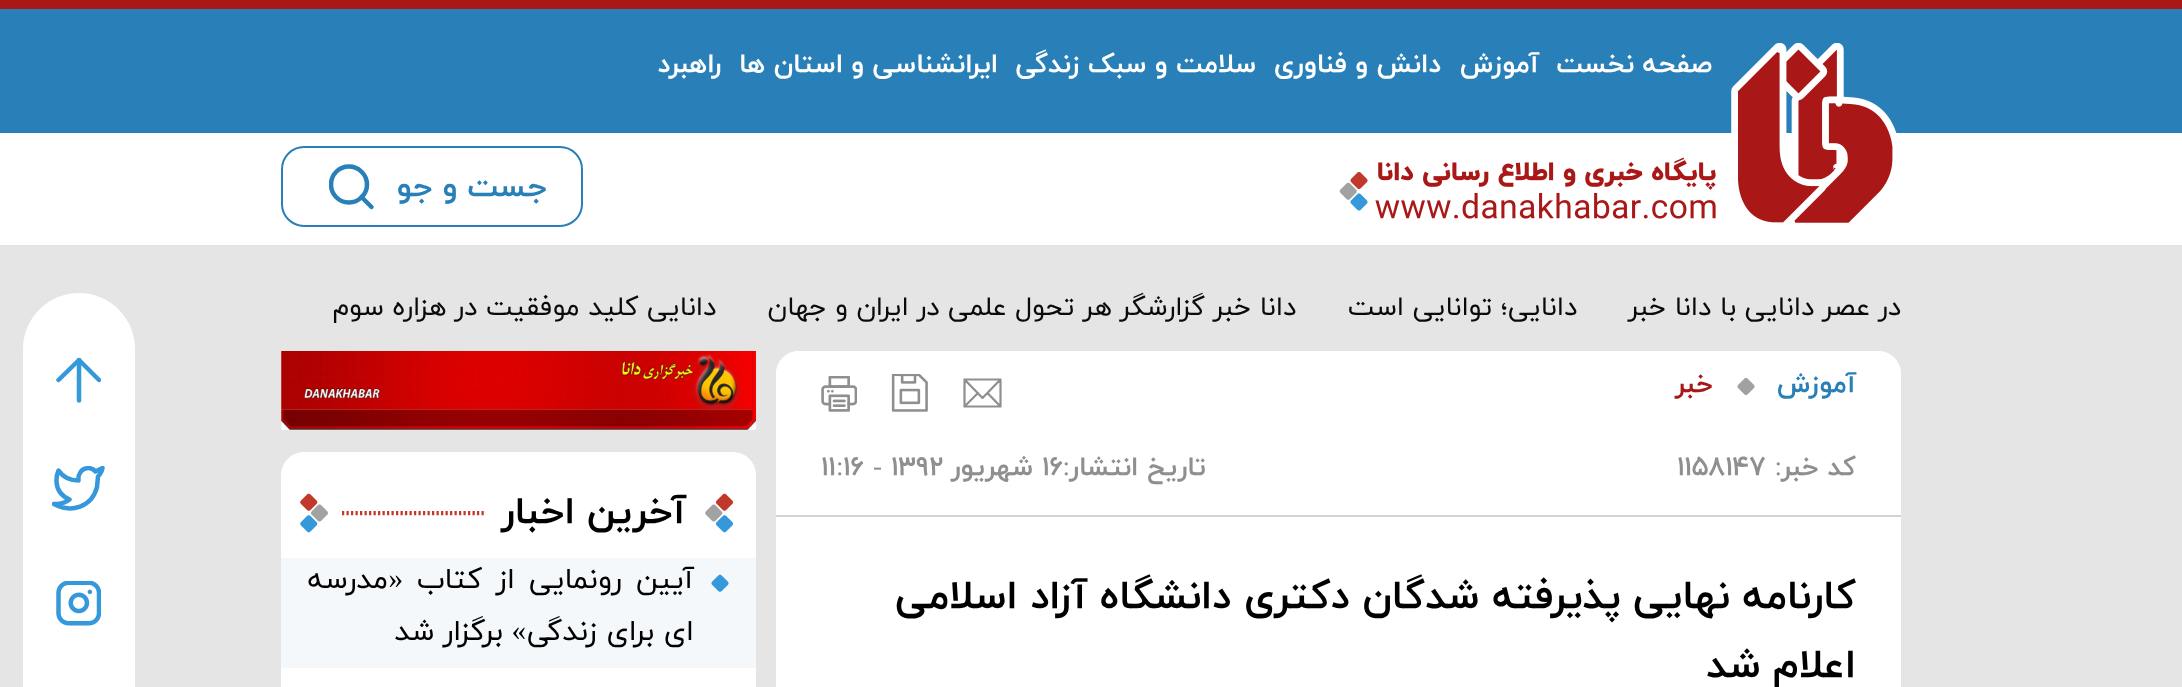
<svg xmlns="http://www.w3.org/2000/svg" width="2182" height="687">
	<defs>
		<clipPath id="clip1"><rect x="329" y="164" width="45" height="45" /></clipPath>
		<clipPath id="clip2"><rect x="342" y="511" width="223" height="5" /></clipPath>
		<clipPath id="clip3"><rect x="56" y="358" width="45" height="45" /></clipPath>
		<clipPath id="clip4"><rect x="52" y="466" width="54" height="45" /></clipPath>
	</defs>
	<rect width="100%" height="100%" fill="#E5E5E5" />
	<rect x="0" y="9" width="2182" height="124" fill="#2980B8" />
	<rect x="0" y="0" width="2182" height="9" fill="#A91717" />
	<rect x="0" y="133" width="2182" height="112" fill="#FFFFFF" />
	<image x="1375" y="43" width="522" height="180" href="assets/img1.png" />
	<g font-family="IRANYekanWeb" font-size="27" font-weight="700" direction="rtl" fill="#FFFFFF">
		<text x="1712" y="72">صفحه نخست</text>
		<text x="1539" y="72">آموزش</text>
		<text x="1441" y="72">دانش و فناوری</text>
		<text x="1256" y="72">سلامت و سبک زندگی</text>
		<text x="998" y="72">ایرانشناسی و استان ها</text>
		<text x="721" y="72">راهبرد</text>
	</g>
	<image x="1339" y="172" width="29" height="39" href="assets/img2.png" />
	<rect x="282" y="147" width="300" height="79" rx="22" fill="none" stroke="#2980B8" stroke-width="2" />
	<text x="547" y="196" font-family="IRANYekanWeb" font-size="31.5" font-weight="700" direction="rtl" fill="#2980B8">جست و جو</text>
	<g clip-path="url(#clip1)">
		<path d="M349 202.5C358.5 202.5 367 194.5 367 184.5C367 174.5 358.5 166.5 349 166.5C339 166.5 331 174.5 331 184.5C331 194.5 339 202.5 349 202.5Z" fill="none" stroke="#2980B8" stroke-width="4.5" stroke-linecap="round" stroke-linejoin="round" />
	</g>
	<path d="M371.5 207L361.5 197" fill="none" stroke="#2980B8" stroke-width="4.5" stroke-linecap="round" stroke-linejoin="round" />
	<text x="1901" y="315" font-family="IRANYekanWeb" font-size="27" direction="rtl" fill="#0A0A0A" xml:space="preserve">در عصر دانایی با دانا خبر      دانایی؛ توانایی است      دانا خبر گزارشگر هر تحول علمی در ایران و جهان      دانایی کلید موفقیت در هزاره سوم</text>
	<rect x="776" y="351" width="1125" height="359" rx="23" fill="#FFFFFF" />
	<path d="M799 351H1878C1890.5 351 1901 361.5 1901 374V518H776V374C776 361.5 786.5 351 799 351Z" fill="#FFFFFF" />
	<rect x="776" y="515" width="1125" height="2" fill="#D3D3D3" />
	<text x="1856" y="392" font-family="IRANYekanWeb" font-size="27" font-weight="700" direction="rtl" fill="#2980B8">آموزش</text>
	<image x="1737" y="378" width="18" height="17" href="assets/img3.png" />
	<text x="1713" y="392" font-family="IRANYekanWeb" font-size="27" font-weight="700" direction="rtl" fill="#A91717">خبر</text>
	<path d="M1000.5 379.5H964.5V406.5H1000.5ZM964.5 379.5L982.5 398L1000.5 379.5M964.5 406.5L978 393M1000.5 406.5L987.5 393" fill="none" stroke="#8F8F8F" stroke-width="2.2" stroke-linecap="round" stroke-linejoin="round" />
	<image x="891" y="374" width="37" height="38" href="assets/img4.png" />
	<image x="821" y="376" width="36" height="36" href="assets/img5.png" />
	<text x="1856" y="475" font-family="IRANYekanWeb" font-size="27" font-weight="700" direction="rtl" fill="#8F8F8F">کد خبر</text>
	<text x="1782" y="475" font-family="Liberation Serif" font-size="27" direction="rtl" fill="#8F8F8F">:</text>
	<text x="1677" y="475" font-family="IRANYekanWeb" font-size="27" font-weight="700" fill="#8F8F8F">۱۱۵۸۱۴۷</text>
	<text x="1206" y="475" font-family="IRANYekanWeb" font-size="27" font-weight="700" direction="rtl" fill="#8F8F8F">تاریخ انتشار</text>
	<text x="1070" y="475" font-family="Liberation Serif" font-size="27" direction="rtl" fill="#8F8F8F">:</text>
	<text x="1042" y="475" font-family="IRANYekanWeb" font-size="27" font-weight="700" fill="#8F8F8F">۱۶</text>
	<text x="1033" y="475" font-family="IRANYekanWeb" font-size="27" font-weight="700" direction="rtl" fill="#8F8F8F">شهريور</text>
	<text x="891" y="475" font-family="IRANYekanWeb" font-size="27" font-weight="700" fill="#8F8F8F">۱۳۹۲</text>
	<text x="873" y="475" font-family="Liberation Serif" font-size="27" fill="#8F8F8F">-</text>
	<text x="843" y="475" font-family="IRANYekanWeb" font-size="27" font-weight="700" fill="#8F8F8F">۱۶</text>
	<text x="836" y="475" font-family="Liberation Serif" font-size="27" fill="#8F8F8F">:</text>
	<text x="821" y="475" font-family="IRANYekanWeb" font-size="27" font-weight="700" fill="#8F8F8F">۱۱</text>
	<g font-family="IRANYekanWeb" font-size="40.5" font-weight="700" direction="rtl" fill="#000000">
		<text x="1856" y="608">کارنامه نهایی پذیرفته شدگان دکتری دانشگاه آزاد اسلامی</text>
		<text x="1856" y="677">اعلام شد</text>
	</g>
	<image x="281" y="351" width="475" height="79" href="assets/img6.png" />
	<rect x="281" y="452" width="475" height="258" rx="23" fill="#FFFFFF" />
	<image x="705" y="493" width="29" height="40" href="assets/img7.png" />
	<g clip-path="url(#clip2)">
		<path d="M342 513H1298" fill="none" stroke="#C0392B" stroke-width="4.5" stroke-dasharray="2.25 2.25" />
	</g>
	<rect x="486" y="511" width="79" height="5" fill="#FFFFFF" />
	<text x="686" y="523" font-family="IRANYekanWeb" font-size="38.25" font-weight="700" direction="rtl" fill="#000000">آخرین اخبار</text>
	<image x="300" y="493" width="28" height="40" href="assets/img8.png" />
	<rect x="281" y="558" width="475" height="110" fill="#F4F8FB" />
	<image x="711" y="574" width="18" height="18" href="assets/img9.png" />
	<text x="694" y="588" word-spacing="5" font-family="IRANYekanWeb" font-size="29.25" direction="rtl" fill="#000000">آیین رونمایی از کتاب</text>
	<text x="403" y="588" font-family="Liberation Serif" font-size="29.25" direction="rtl" fill="#000000">«</text>
	<g font-family="IRANYekanWeb" font-size="29.25" direction="rtl" fill="#000000">
		<text x="388" y="588">مدرسه</text>
		<text x="694" y="640">ای برای زندگی</text>
	</g>
	<text x="526" y="640" font-family="Liberation Serif" font-size="29.25" direction="rtl" fill="#000000">»</text>
	<text x="503" y="640" font-family="IRANYekanWeb" font-size="29.25" direction="rtl" fill="#000000">برگزار شد</text>
	<rect x="23" y="293" width="112" height="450" rx="56" fill="#FFFFFF" />
	<path d="M79 400.5V360" fill="none" stroke="#3498DB" stroke-width="4.5" stroke-linecap="round" stroke-linejoin="round" />
	<g clip-path="url(#clip3)">
		<path d="M58.5 380L79 360L99 380" fill="none" stroke="#3498DB" stroke-width="4.5" stroke-linecap="round" stroke-linejoin="round" />
	</g>
	<g clip-path="url(#clip4)">
		<path d="M102.5 468L95.5 471.5C91 466 82 467.5 79.5 474C78 476 78.5 478 78.5 480.5C70.5 480.5 63 477 58.5 470.5C58.5 470.5 49.5 490.5 69.5 499.5C65 503 59.5 504.5 54 504C71 513.5 92 507 97 487L98 476.5C100.5 474 102 471 102.5 468Z" fill="none" stroke="#3498DB" stroke-width="4.5" stroke-linecap="round" stroke-linejoin="round" />
	</g>
	<image x="56" y="581" width="45" height="45" href="assets/img10.png" />
</svg>
